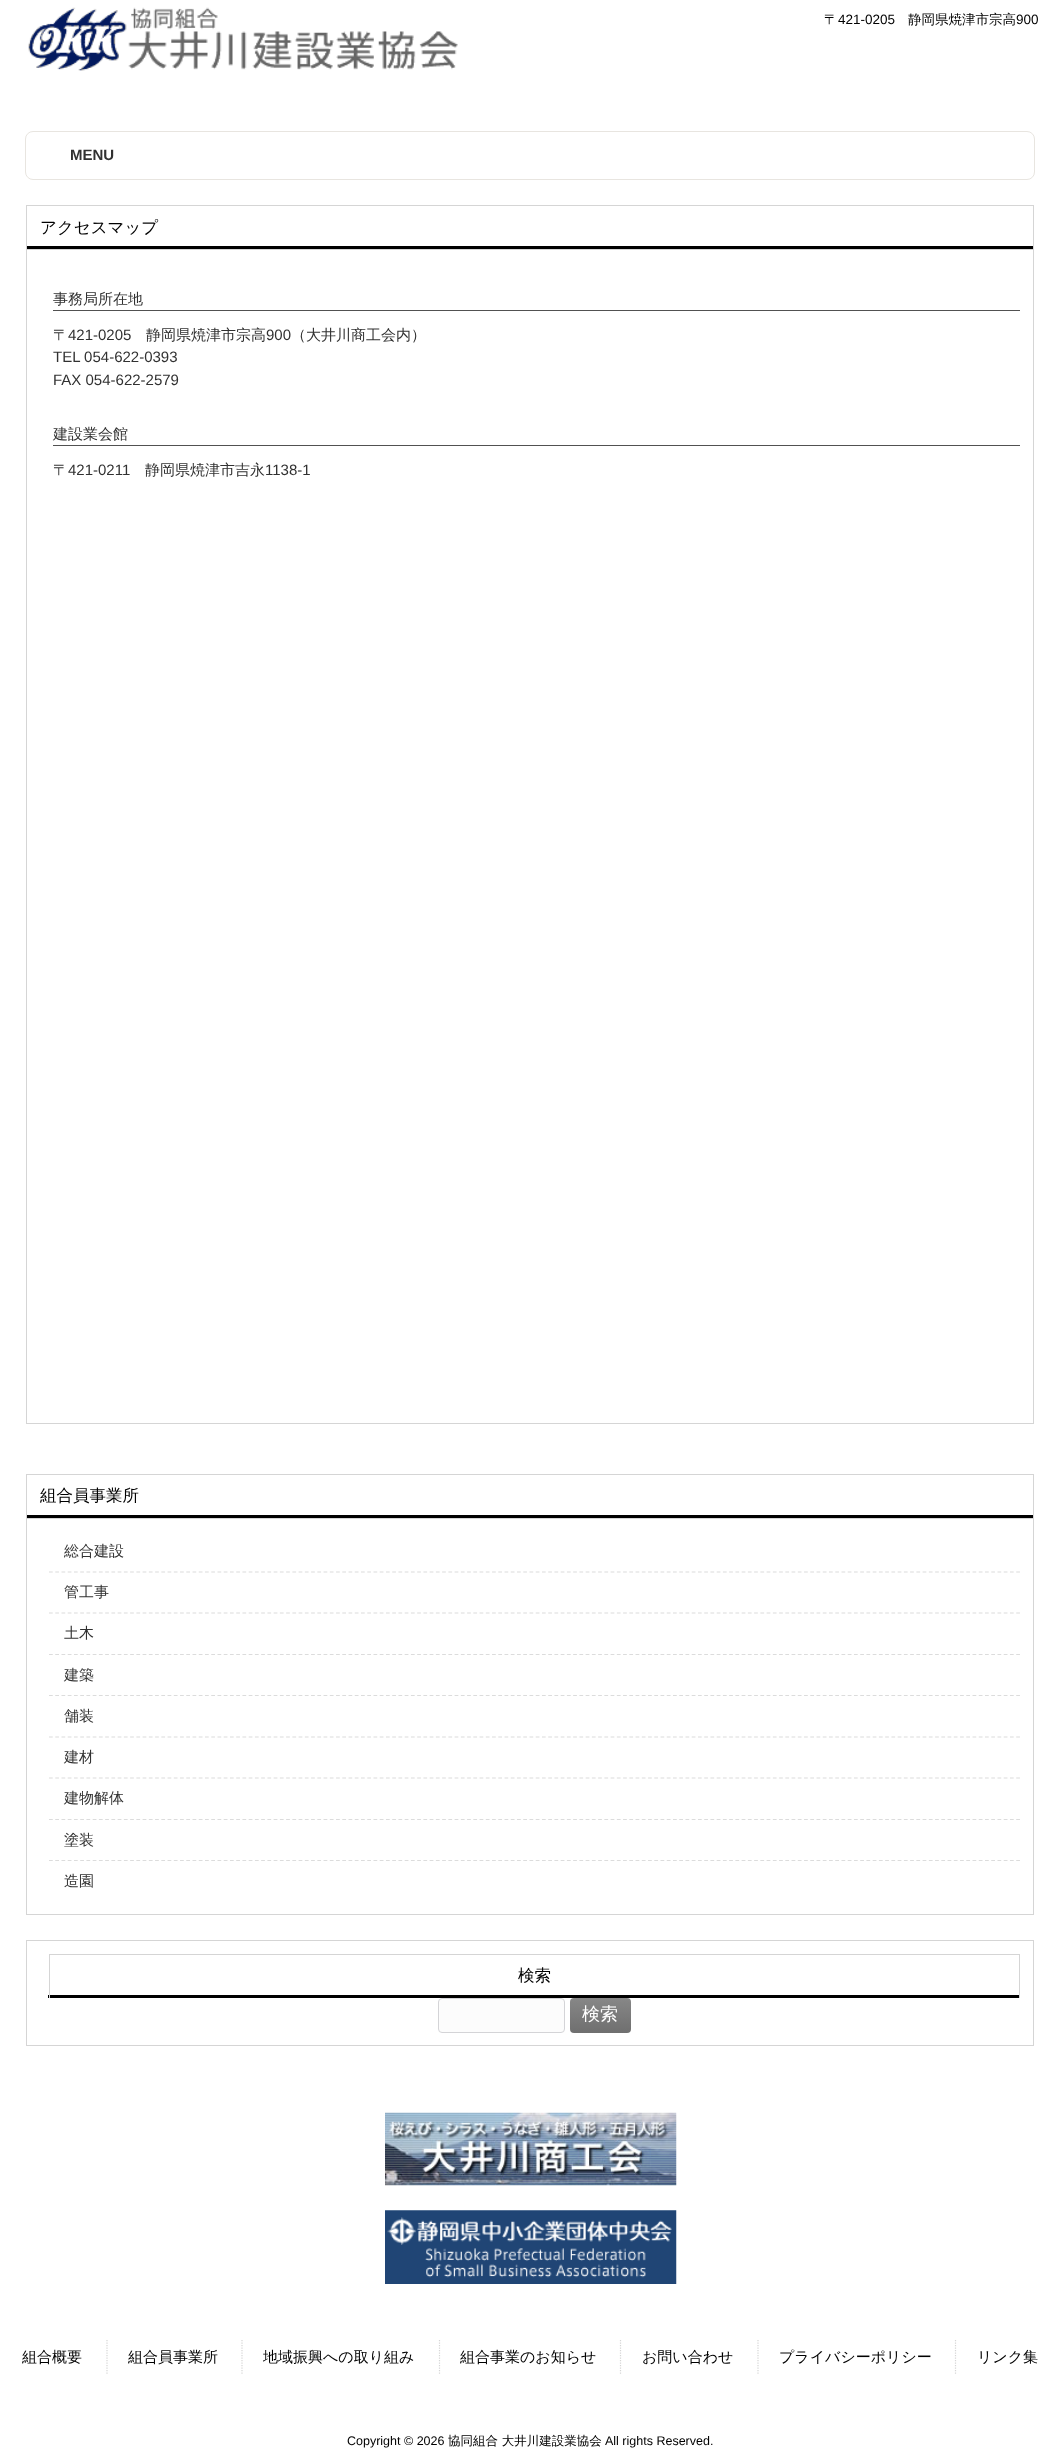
<svg xmlns="http://www.w3.org/2000/svg" width="1059" height="2452">
	<defs>
		<linearGradient id="g1" gradientUnits="userSpaceOnUse" x1="601" y1="1998" x2="601" y2="2033"><stop offset="0" stop-color="#878787" /><stop offset="1" stop-color="#6F6F6F" /></linearGradient>
	</defs>
	<rect width="100%" height="100%" fill="#FFFFFF" />
	<image x="28" y="7" width="430" height="64" href="assets/img1.png" />
	<text x="824" y="24" font-family="WenQuanYi Zen Hei" font-size="13.5" font-weight="500" fill="#000000">〒</text>
	<text x="838" y="24" font-family="Liberation Sans" font-size="13.5" fill="#000000">421-0205</text>
	<text x="908" y="24" font-family="WenQuanYi Zen Hei" font-size="13.5" font-weight="500" fill="#000000">静岡県焼津市宗高</text>
	<text x="1016" y="24" font-family="Liberation Sans" font-size="13.5" fill="#000000">900</text>
	<rect x="25.5" y="131.5" width="1009" height="48" rx="7.5" fill="none" stroke="#E8E5E0" />
	<text x="70" y="160" font-family="Liberation Sans" font-size="15" font-weight="700" fill="#313131">MENU</text>
	<rect x="26" y="246" width="1008" height="3" fill="#000000" />
	<rect x="26" y="205" width="1008" height="1" fill="#D5D5D5" />
	<rect x="1033" y="205" width="1" height="44" fill="#D5D5D5" />
	<rect x="26" y="205" width="1" height="44" fill="#D5D5D5" />
	<text x="40" y="233" font-family="WenQuanYi Zen Hei" font-size="16.5" font-weight="500" fill="#000000">アクセスマップ</text>
	<rect x="26.5" y="249.5" width="1007" height="1174" fill="none" stroke="#D5D5D5" />
	<rect x="53" y="310" width="967" height="1" fill="#515151" />
	<g font-family="WenQuanYi Zen Hei" font-size="15" font-weight="500" fill="#313131">
		<text x="53" y="304">事務局所在地</text>
		<text x="53" y="340">〒</text>
	</g>
	<text x="68" y="340" font-family="Liberation Sans" font-size="15" fill="#313131">421-0205</text>
	<text x="146" y="340" font-family="WenQuanYi Zen Hei" font-size="15" font-weight="500" fill="#313131">静岡県焼津市宗高</text>
	<text x="266" y="340" font-family="Liberation Sans" font-size="15" fill="#313131">900</text>
	<text x="291" y="340" font-family="WenQuanYi Zen Hei" font-size="15" font-weight="500" fill="#313131">（大井川商工会内）</text>
	<g font-family="Liberation Sans" font-size="15" fill="#313131">
		<text x="53" y="362">TEL 054-622-0393</text>
		<text x="53" y="385">FAX 054-622-2579</text>
	</g>
	<rect x="53" y="445" width="967" height="1" fill="#515151" />
	<g font-family="WenQuanYi Zen Hei" font-size="15" font-weight="500" fill="#313131">
		<text x="53" y="439">建設業会館</text>
		<text x="53" y="475">〒</text>
	</g>
	<text x="68" y="475" font-family="Liberation Sans" font-size="15" fill="#313131">421-0211</text>
	<text x="145" y="475" font-family="WenQuanYi Zen Hei" font-size="15" font-weight="500" fill="#313131">静岡県焼津市吉永</text>
	<text x="265" y="475" font-family="Liberation Sans" font-size="15" fill="#313131">1138-1</text>
	<rect x="26" y="1515" width="1008" height="3" fill="#000000" />
	<rect x="26" y="1474" width="1008" height="1" fill="#D5D5D5" />
	<rect x="1033" y="1474" width="1" height="44" fill="#D5D5D5" />
	<rect x="26" y="1474" width="1" height="44" fill="#D5D5D5" />
	<text x="40" y="1501" font-family="WenQuanYi Zen Hei" font-size="16.5" font-weight="500" fill="#000000">組合員事業所</text>
	<rect x="26.5" y="1518.5" width="1007" height="396" fill="none" stroke="#D5D5D5" />
	<path d="M49 1572H1020" fill="none" stroke="#DCDCDC" stroke-width="1.2" stroke-dasharray="3.75 2.49" />
	<text x="64" y="1556" font-family="WenQuanYi Zen Hei" font-size="15" font-weight="500" fill="#313131">総合建設</text>
	<path d="M49 1613H1020" fill="none" stroke="#DCDCDC" stroke-width="1.2" stroke-dasharray="3.75 2.49" />
	<text x="64" y="1597" font-family="WenQuanYi Zen Hei" font-size="15" font-weight="500" fill="#313131">管工事</text>
	<path d="M49 1654.5H1020" fill="none" stroke="#DCDCDC" stroke-width="1.2" stroke-dasharray="3.75 2.49" />
	<text x="64" y="1638" font-family="WenQuanYi Zen Hei" font-size="15" font-weight="500" fill="#313131">土木</text>
	<path d="M49 1695.5H1020" fill="none" stroke="#DCDCDC" stroke-width="1.2" stroke-dasharray="3.75 2.49" />
	<text x="64" y="1680" font-family="WenQuanYi Zen Hei" font-size="15" font-weight="500" fill="#313131">建築</text>
	<path d="M49 1737H1020" fill="none" stroke="#DCDCDC" stroke-width="1.2" stroke-dasharray="3.75 2.49" />
	<text x="64" y="1721" font-family="WenQuanYi Zen Hei" font-size="15" font-weight="500" fill="#313131">舗装</text>
	<path d="M49 1778H1020" fill="none" stroke="#DCDCDC" stroke-width="1.2" stroke-dasharray="3.75 2.49" />
	<text x="64" y="1762" font-family="WenQuanYi Zen Hei" font-size="15" font-weight="500" fill="#313131">建材</text>
	<path d="M49 1819.5H1020" fill="none" stroke="#DCDCDC" stroke-width="1.2" stroke-dasharray="3.75 2.49" />
	<text x="64" y="1803" font-family="WenQuanYi Zen Hei" font-size="15" font-weight="500" fill="#313131">建物解体</text>
	<path d="M49 1860.5H1020" fill="none" stroke="#DCDCDC" stroke-width="1.2" stroke-dasharray="3.75 2.49" />
	<g font-family="WenQuanYi Zen Hei" font-size="15" font-weight="500" fill="#313131">
		<text x="64" y="1845">塗装</text>
		<text x="64" y="1886">造園</text>
	</g>
	<rect x="26.5" y="1940.5" width="1007" height="105" fill="none" stroke="#D5D5D5" />
	<rect x="48" y="1995" width="972" height="3" fill="#000000" />
	<rect x="49" y="1954" width="971" height="1" fill="#D5D5D5" />
	<rect x="1019" y="1954" width="1" height="44" fill="#D5D5D5" />
	<rect x="49" y="1954" width="1" height="44" fill="#D5D5D5" />
	<text x="518" y="1981" font-family="WenQuanYi Zen Hei" font-size="16.5" font-weight="500" fill="#000000">検索</text>
	<rect x="438.5" y="1998.5" width="126" height="34" rx="3.5" fill="#FCFCFC" stroke="#D4D4D7" />
	<rect x="570" y="1998" width="61" height="35" rx="4" fill="url(#g1)" />
	<text x="582" y="2020" font-family="WenQuanYi Zen Hei" font-size="18" font-weight="500" fill="#FFFFFF">検索</text>
	<image x="385" y="2112" width="292" height="74" href="assets/img2.png" />
	<image x="385" y="2210" width="292" height="74" href="assets/img3.png" />
	<text x="22" y="2362" font-family="WenQuanYi Zen Hei" font-size="15" font-weight="500" fill="#000000">組合概要</text>
	<path d="M107 2340V2375" fill="none" stroke="#D5D5D5" stroke-width="1.2" stroke-dasharray="1.25 1.25" />
	<text x="128" y="2362" font-family="WenQuanYi Zen Hei" font-size="15" font-weight="500" fill="#000000">組合員事業所</text>
	<path d="M242 2340V2375" fill="none" stroke="#D5D5D5" stroke-width="1.2" stroke-dasharray="1.25 1.25" />
	<text x="263" y="2362" font-family="WenQuanYi Zen Hei" font-size="15" font-weight="500" fill="#000000">地域振興への取り組み</text>
	<path d="M439.5 2340V2375" fill="none" stroke="#D5D5D5" stroke-width="1.2" stroke-dasharray="1.25 1.25" />
	<text x="460" y="2362" font-family="WenQuanYi Zen Hei" font-size="15" font-weight="500" fill="#000000">組合事業のお知らせ</text>
	<path d="M620.5 2340V2375" fill="none" stroke="#D5D5D5" stroke-width="1.2" stroke-dasharray="1.25 1.25" />
	<text x="642" y="2362" font-family="WenQuanYi Zen Hei" font-size="15" font-weight="500" fill="#000000">お問い合わせ</text>
	<path d="M758 2340V2375" fill="none" stroke="#D5D5D5" stroke-width="1.2" stroke-dasharray="1.25 1.25" />
	<text x="779" y="2362" font-family="WenQuanYi Zen Hei" font-size="15" font-weight="500" fill="#000000">プライバシーポリシー</text>
	<path d="M955.5 2340V2375" fill="none" stroke="#D5D5D5" stroke-width="1.2" stroke-dasharray="1.25 1.25" />
	<text x="977" y="2362" font-family="WenQuanYi Zen Hei" font-size="15" font-weight="500" fill="#000000">リンク集</text>
	<text x="347" y="2445" font-family="Liberation Sans" font-size="12.5" fill="#000000">Copyright © 2026</text>
	<text x="448" y="2445" font-family="WenQuanYi Zen Hei" font-size="12.5" font-weight="500" fill="#000000">協同組合 大井川建設業協会</text>
	<text x="605" y="2445" font-family="Liberation Sans" font-size="12.5" fill="#000000">All rights Reserved.</text>
</svg>
